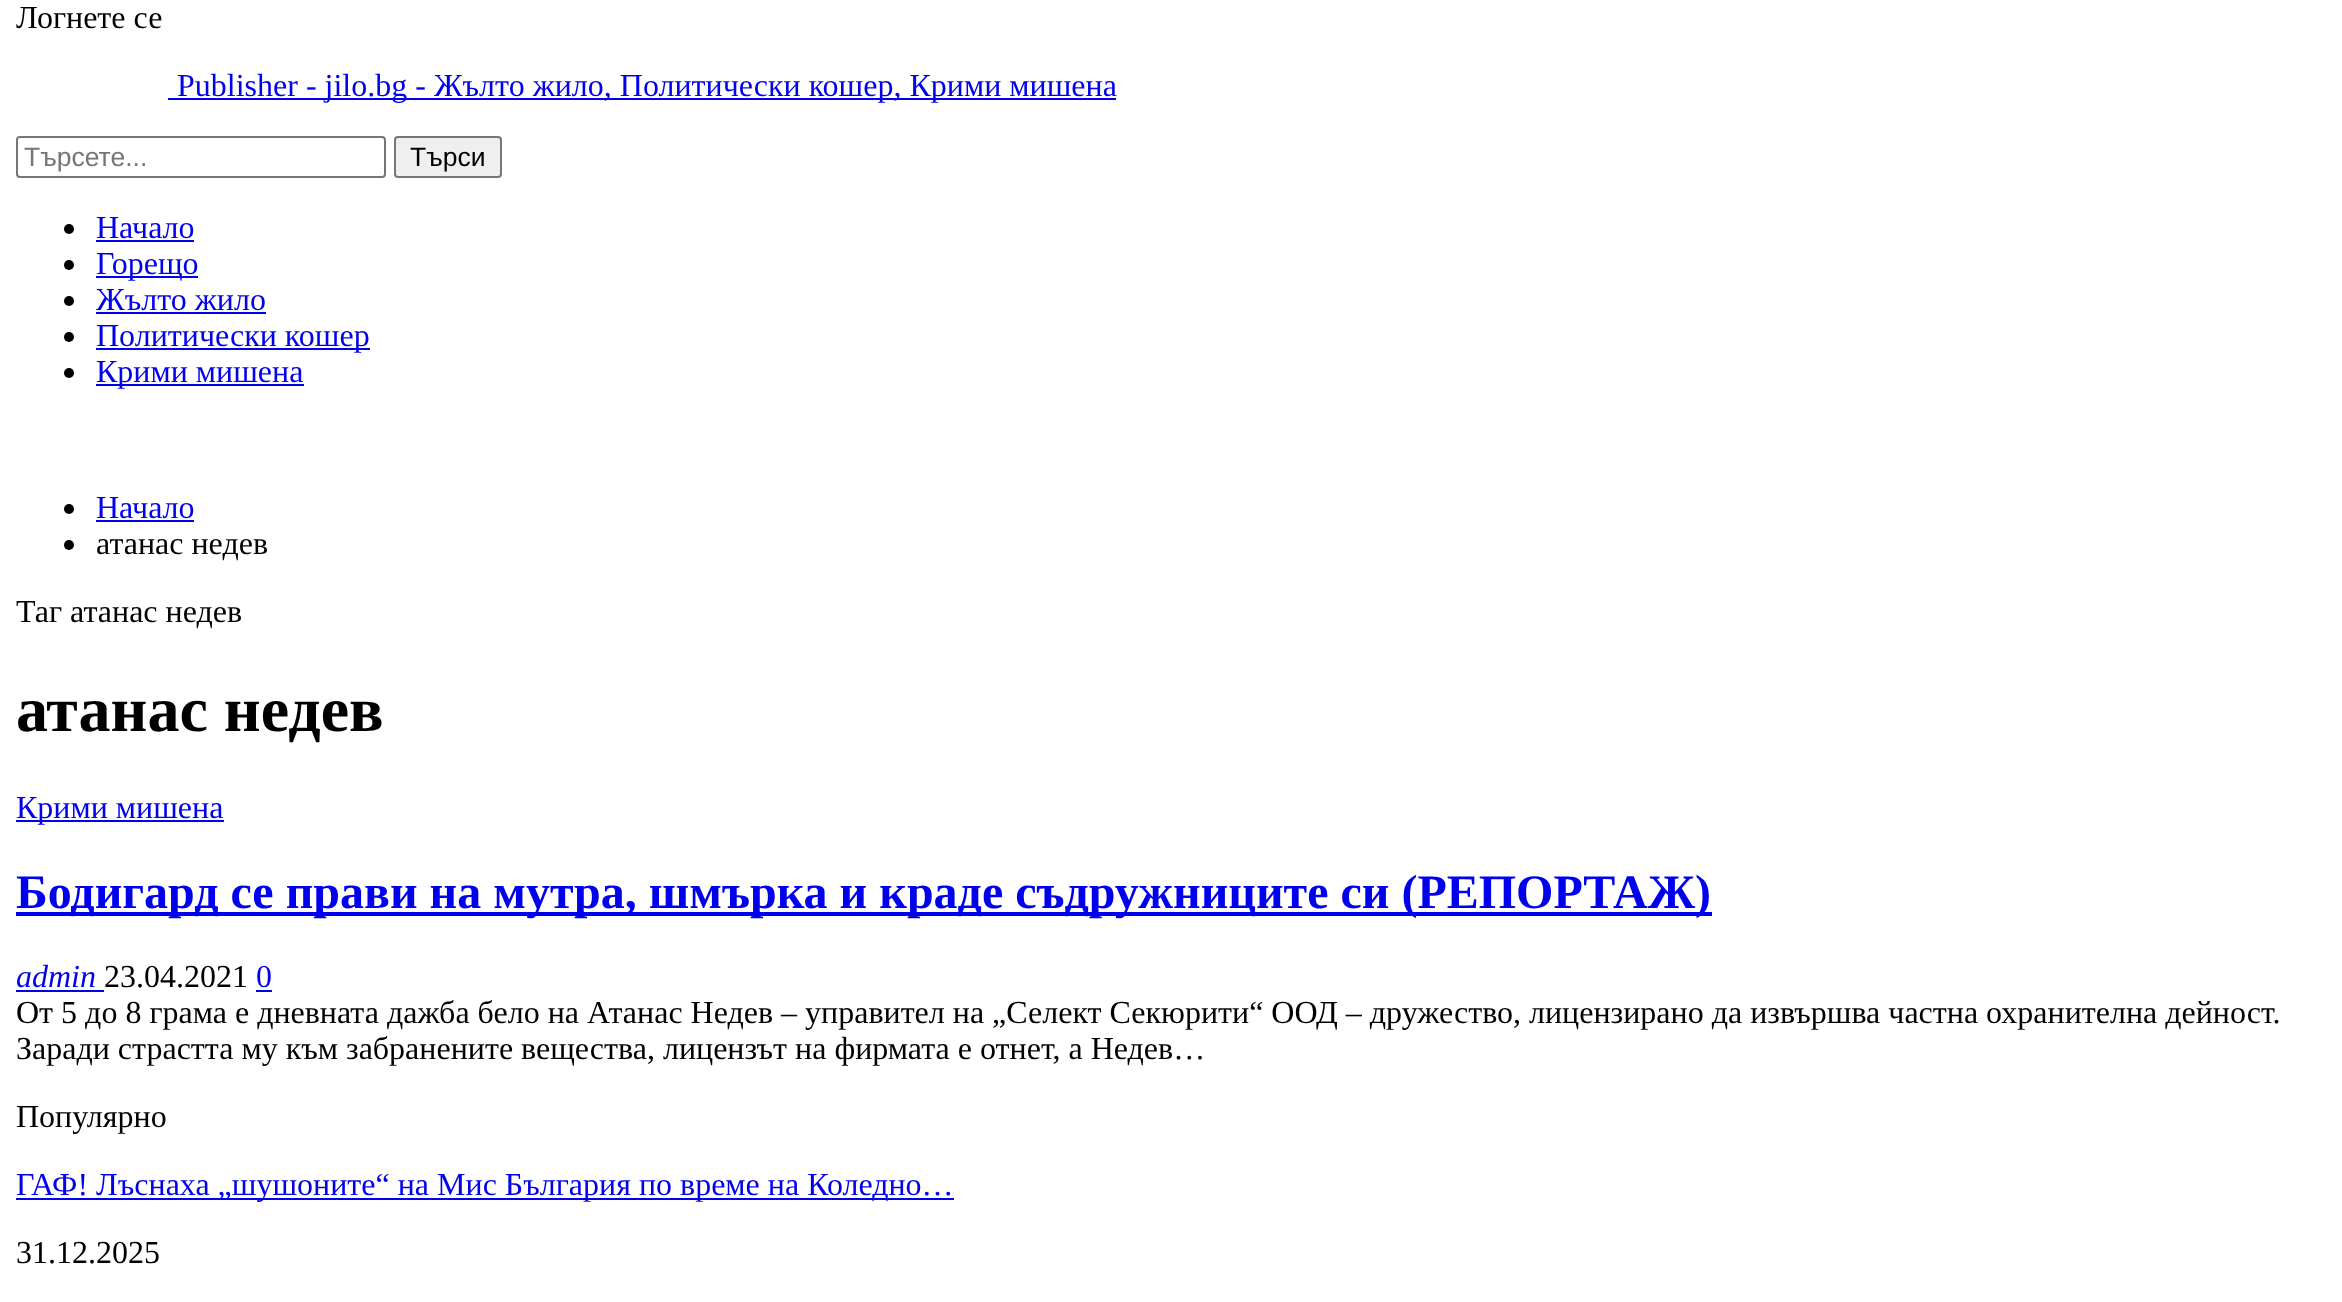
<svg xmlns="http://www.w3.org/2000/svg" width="2342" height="1302">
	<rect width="100%" height="100%" fill="#FFFFFF" />
	<text x="16" y="28" font-family="Liberation Serif" font-size="32" fill="#000000">Логнете се</text>
	<rect x="168" y="98" width="948" height="2" fill="#0000EE" />
	<text x="177" y="96" font-family="Liberation Serif" font-size="32" fill="#0000EE">Publisher - jilo.bg - Жълто жило, Политически кошер, Крими мишена</text>
	<rect x="17" y="137" width="368" height="40" rx="3" fill="none" stroke="#767676" stroke-width="2" />
	<text x="24" y="166" font-family="Liberation Sans" font-size="26.5" fill="#757575">Търсете...</text>
	<rect x="395" y="137" width="106" height="40" rx="3" fill="#EFEFEF" stroke="#767676" stroke-width="2" />
	<text x="410" y="166" font-family="Liberation Sans" font-size="26.5" fill="#000000">Търси</text>
	<circle cx="69" cy="229" r="5" fill="#000000" />
	<text x="96" y="238" font-family="Liberation Serif" font-size="32" fill="#0000EE">Начало</text>
	<rect x="96" y="240" width="98" height="2" fill="#0000EE" />
	<circle cx="69" cy="265" r="5" fill="#000000" />
	<rect x="96" y="276" width="102" height="2" fill="#0000EE" />
	<text x="96" y="274" font-family="Liberation Serif" font-size="32" fill="#0000EE">Горещо</text>
	<circle cx="69" cy="301" r="5" fill="#000000" />
	<text x="96" y="310" font-family="Liberation Serif" font-size="32" fill="#0000EE">Жълто жило</text>
	<rect x="96" y="312" width="170" height="2" fill="#0000EE" />
	<circle cx="69" cy="337" r="5" fill="#000000" />
	<rect x="96" y="348" width="274" height="2" fill="#0000EE" />
	<text x="96" y="346" font-family="Liberation Serif" font-size="32" fill="#0000EE">Политически кошер</text>
	<circle cx="69" cy="373" r="5" fill="#000000" />
	<rect x="96" y="384" width="208" height="2" fill="#0000EE" />
	<text x="96" y="382" font-family="Liberation Serif" font-size="32" fill="#0000EE">Крими мишена</text>
	<circle cx="69" cy="509" r="5" fill="#000000" />
	<text x="96" y="518" font-family="Liberation Serif" font-size="32" fill="#0000EE">Начало</text>
	<rect x="96" y="520" width="98" height="2" fill="#0000EE" />
	<circle cx="69" cy="545" r="5" fill="#000000" />
	<g font-family="Liberation Serif" font-size="32" fill="#000000">
		<text x="96" y="554">атанас недев</text>
		<text x="16" y="622">Таг атанас недев</text>
	</g>
	<text x="16" y="731" font-family="Liberation Serif" font-size="64" font-weight="700" fill="#000000">атанас недев</text>
	<rect x="16" y="820" width="208" height="2" fill="#0000EE" />
	<text x="16" y="818" font-family="Liberation Serif" font-size="32" fill="#0000EE">Крими мишена</text>
	<rect x="16" y="912" width="1696" height="4" fill="#0000EE" />
	<text x="16" y="908" font-family="Liberation Serif" font-size="48" font-weight="700" fill="#0000EE">Бодигард се прави на мутра, шмърка и краде съдружниците си (РЕПОРТАЖ)</text>
	<text x="16" y="987" font-family="Liberation Serif" font-size="32" font-style="italic" fill="#0000EE">admin</text>
	<rect x="16" y="990" width="88" height="2" fill="#0000EE" />
	<text x="104" y="987" font-family="Liberation Serif" font-size="32" fill="#000000">23.04.2021</text>
	<text x="256" y="987" font-family="Liberation Serif" font-size="32" fill="#0000EE">0</text>
	<rect x="256" y="990" width="16" height="2" fill="#0000EE" />
	<g font-family="Liberation Serif" font-size="32" fill="#000000">
		<text x="16" y="1023">От 5 до 8 грама е дневната дажба бело на Атанас Недев – управител на „Селект Секюрити“ ООД – дружество, лицензирано да извършва частна охранителна дейност.</text>
		<text x="16" y="1059">Заради страстта му към забранените вещества, лицензът на фирмата е отнет, а Недев…</text>
		<text x="16" y="1127">Популярно</text>
	</g>
	<rect x="16" y="1198" width="938" height="2" fill="#0000EE" />
	<text x="16" y="1195" font-family="Liberation Serif" font-size="32" fill="#0000EE">ГАФ! Лъснаха „шушоните“ на Мис България по време на Коледно…</text>
	<text x="16" y="1263" font-family="Liberation Serif" font-size="32" fill="#000000">31.12.2025</text>
</svg>
